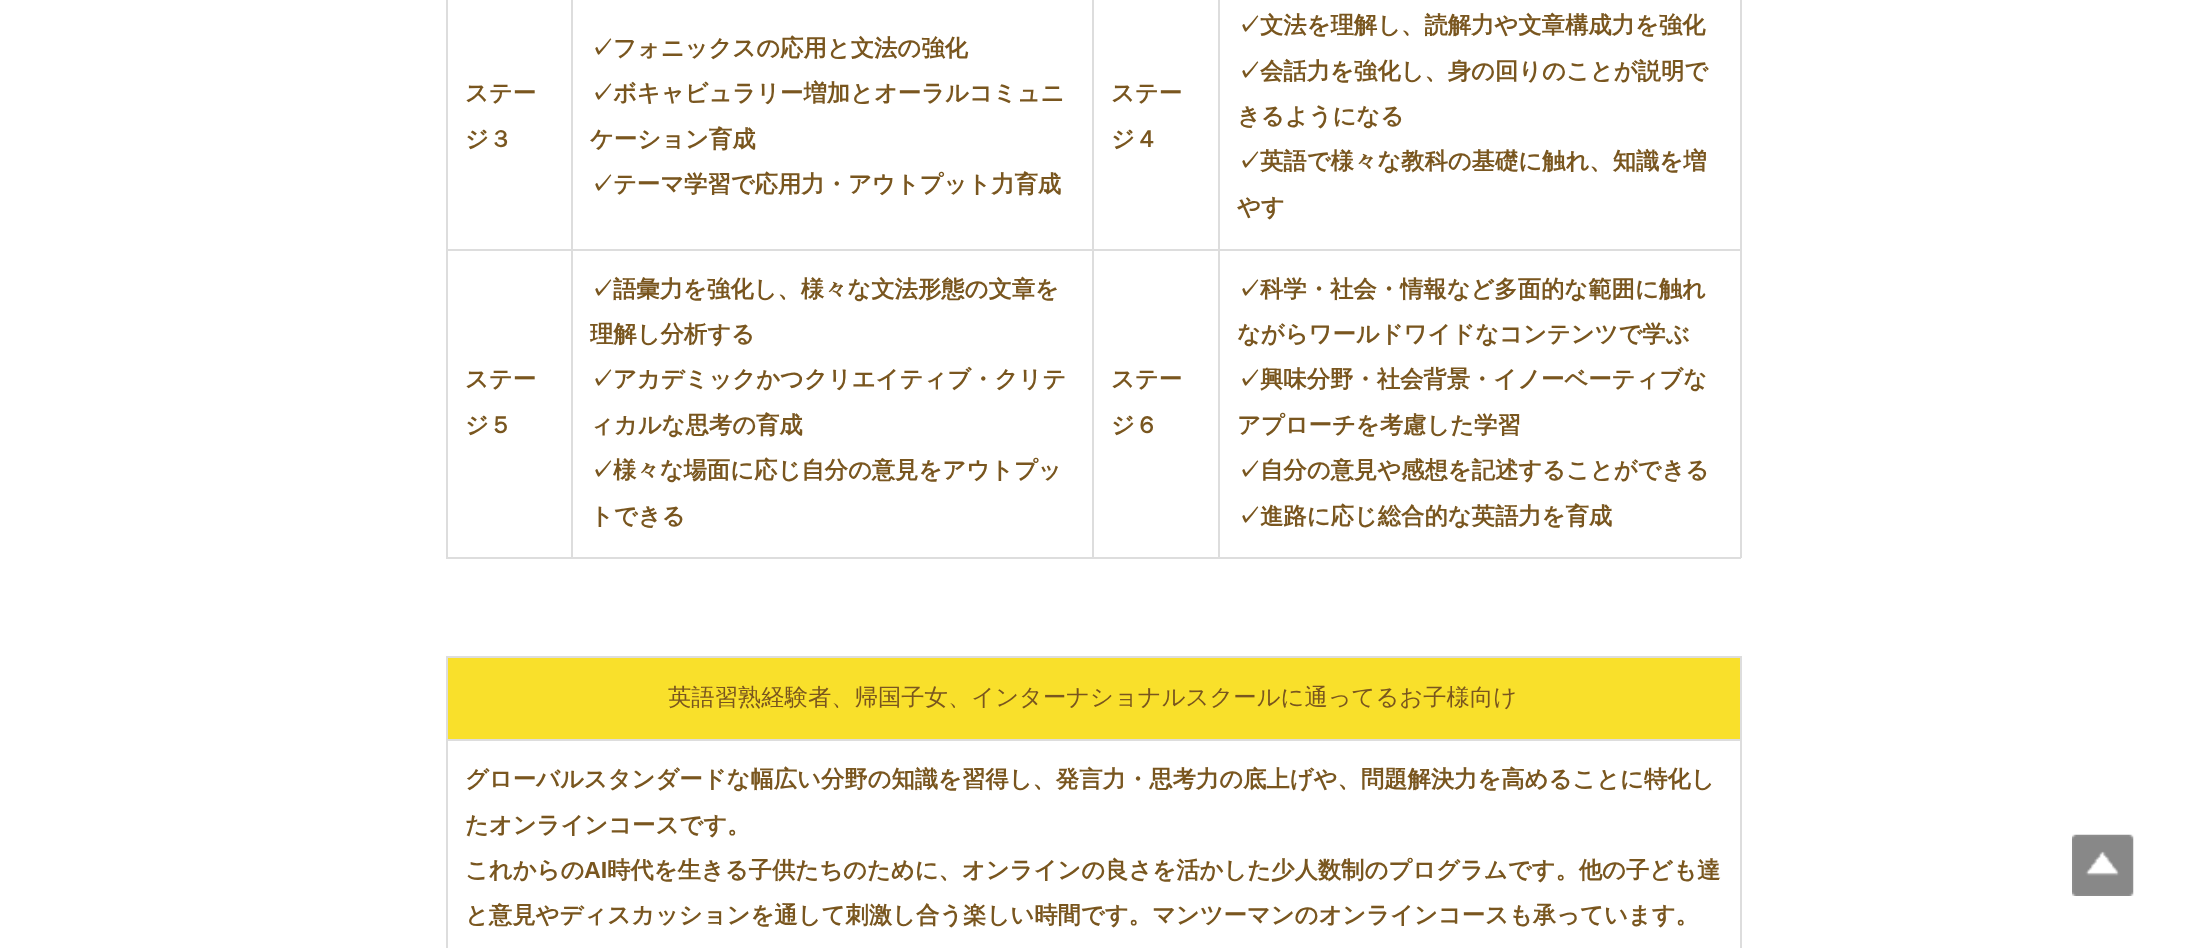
<svg xmlns="http://www.w3.org/2000/svg" width="2185" height="948">
	<rect width="100%" height="100%" fill="#FFFFFF" />
	<g font-family="WenQuanYi Zen Hei" font-size="23.33" font-weight="700" fill="#79561F">
		<text x="465" y="101">ステー</text>
		<text x="465" y="147">ジ３</text>
	</g>
	<rect x="1218" y="249" width="523" height="2" fill="#DDDDDD" />
	<rect x="1740" y="0" width="2" height="558" fill="#DDDDDD" />
	<rect x="1218" y="557" width="523" height="2" fill="#DDDDDD" />
	<rect x="1218" y="249" width="2" height="309" fill="#DDDDDD" />
	<rect x="1092" y="249" width="128" height="2" fill="#DDDDDD" />
	<rect x="1092" y="557" width="128" height="2" fill="#DDDDDD" />
	<rect x="1092" y="249" width="2" height="309" fill="#DDDDDD" />
	<rect x="571" y="249" width="523" height="2" fill="#DDDDDD" />
	<rect x="571" y="557" width="523" height="2" fill="#DDDDDD" />
	<rect x="571" y="249" width="2" height="309" fill="#DDDDDD" />
	<rect x="446" y="249" width="126" height="2" fill="#DDDDDD" />
	<rect x="571" y="0" width="2" height="250" fill="#DDDDDD" />
	<text x="590" y="56" font-family="IPAPGothic" font-size="23.33" font-weight="700" fill="#79561F">✓</text>
	<text x="613" y="56" font-family="WenQuanYi Zen Hei" font-size="23.33" font-weight="700" fill="#79561F">フォニックスの応用と文法の強化</text>
	<text x="590" y="101" font-family="IPAPGothic" font-size="23.33" font-weight="700" fill="#79561F">✓</text>
	<g font-family="WenQuanYi Zen Hei" font-size="23.33" font-weight="700" fill="#79561F">
		<text x="613" y="101">ボキャビュラリー増加とオーラルコミュニ</text>
		<text x="590" y="147">ケーション育成</text>
	</g>
	<text x="590" y="192" font-family="IPAPGothic" font-size="23.33" font-weight="700" fill="#79561F">✓</text>
	<text x="613" y="192" font-family="WenQuanYi Zen Hei" font-size="23.33" font-weight="700" fill="#79561F">テーマ学習で応用力・アウトプット力育成</text>
	<rect x="1092" y="0" width="2" height="250" fill="#DDDDDD" />
	<g font-family="WenQuanYi Zen Hei" font-size="23.33" font-weight="700" fill="#79561F">
		<text x="1111" y="101">ステー</text>
		<text x="1111" y="147">ジ４</text>
	</g>
	<rect x="1218" y="0" width="2" height="250" fill="#DDDDDD" />
	<text x="1237" y="33" font-family="IPAPGothic" font-size="23.33" font-weight="700" fill="#79561F">✓</text>
	<text x="1260" y="33" font-family="WenQuanYi Zen Hei" font-size="23.33" font-weight="700" fill="#79561F">文法を理解し、読解力や文章構成力を強化</text>
	<text x="1237" y="79" font-family="IPAPGothic" font-size="23.33" font-weight="700" fill="#79561F">✓</text>
	<g font-family="WenQuanYi Zen Hei" font-size="23.33" font-weight="700" fill="#79561F">
		<text x="1260" y="79">会話力を強化し、身の回りのことが説明で</text>
		<text x="1237" y="124">きるようになる</text>
	</g>
	<text x="1237" y="169" font-family="IPAPGothic" font-size="23.33" font-weight="700" fill="#79561F">✓</text>
	<g font-family="WenQuanYi Zen Hei" font-size="23.33" font-weight="700" fill="#79561F">
		<text x="1260" y="169">英語で様々な教科の基礎に触れ、知識を増</text>
		<text x="1237" y="215">やす</text>
	</g>
	<rect x="446" y="557" width="126" height="2" fill="#DDDDDD" />
	<rect x="446" y="0" width="2" height="558" fill="#DDDDDD" />
	<g font-family="WenQuanYi Zen Hei" font-size="23.33" font-weight="700" fill="#79561F">
		<text x="465" y="387">ステー</text>
		<text x="465" y="433">ジ５</text>
	</g>
	<text x="590" y="297" font-family="IPAPGothic" font-size="23.33" font-weight="700" fill="#79561F">✓</text>
	<g font-family="WenQuanYi Zen Hei" font-size="23.33" font-weight="700" fill="#79561F">
		<text x="613" y="297">語彙力を強化し、様々な文法形態の文章を</text>
		<text x="590" y="342">理解し分析する</text>
	</g>
	<text x="590" y="387" font-family="IPAPGothic" font-size="23.33" font-weight="700" fill="#79561F">✓</text>
	<g font-family="WenQuanYi Zen Hei" font-size="23.33" font-weight="700" fill="#79561F">
		<text x="613" y="387">アカデミックかつクリエイティブ・クリテ</text>
		<text x="590" y="433">ィカルな思考の育成</text>
	</g>
	<text x="590" y="478" font-family="IPAPGothic" font-size="23.33" font-weight="700" fill="#79561F">✓</text>
	<g font-family="WenQuanYi Zen Hei" font-size="23.33" font-weight="700" fill="#79561F">
		<text x="613" y="478">様々な場面に応じ自分の意見をアウトプッ</text>
		<text x="590" y="524">トできる</text>
		<text x="1111" y="387">ステー</text>
		<text x="1111" y="433">ジ６</text>
	</g>
	<text x="1237" y="297" font-family="IPAPGothic" font-size="23.33" font-weight="700" fill="#79561F">✓</text>
	<g font-family="WenQuanYi Zen Hei" font-size="23.33" font-weight="700" fill="#79561F">
		<text x="1260" y="297">科学・社会・情報など多面的な範囲に触れ</text>
		<text x="1237" y="342">ながらワールドワイドなコンテンツで学ぶ</text>
	</g>
	<text x="1237" y="387" font-family="IPAPGothic" font-size="23.33" font-weight="700" fill="#79561F">✓</text>
	<g font-family="WenQuanYi Zen Hei" font-size="23.33" font-weight="700" fill="#79561F">
		<text x="1260" y="387">興味分野・社会背景・イノーベーティブな</text>
		<text x="1237" y="433">アプローチを考慮した学習</text>
	</g>
	<text x="1237" y="478" font-family="IPAPGothic" font-size="23.33" font-weight="700" fill="#79561F">✓</text>
	<text x="1260" y="478" font-family="WenQuanYi Zen Hei" font-size="23.33" font-weight="700" fill="#79561F">自分の意見や感想を記述することができる</text>
	<text x="1237" y="524" font-family="IPAPGothic" font-size="23.33" font-weight="700" fill="#79561F">✓</text>
	<text x="1260" y="524" font-family="WenQuanYi Zen Hei" font-size="23.33" font-weight="700" fill="#79561F">進路に応じ総合的な英語力を育成</text>
	<rect x="448" y="658" width="1292" height="81" fill="#F9E02B" />
	<rect x="446" y="656" width="1295" height="2" fill="#DDDDDD" />
	<rect x="446" y="739" width="1295" height="2" fill="#DDDDDD" />
	<rect x="1740" y="739" width="2" height="209" fill="#DDDDDD" />
	<rect x="1740" y="656" width="2" height="84" fill="#DDDDDD" />
	<rect x="446" y="739" width="2" height="209" fill="#DDDDDD" />
	<rect x="446" y="656" width="2" height="84" fill="#DDDDDD" />
	<text x="668" y="705" font-family="WenQuanYi Zen Hei" font-size="23.33" font-weight="500" fill="#79561F">英語習熟経験者、帰国子女、インターナショナルスクールに通ってるお子様向け</text>
	<g font-family="WenQuanYi Zen Hei" font-size="23.33" font-weight="700" fill="#79561F">
		<text x="465" y="787">グローバルスタンダードな幅広い分野の知識を習得し、発言力・思考力の底上げや、問題解決力を高めることに特化し</text>
		<text x="465" y="833">たオンラインコースです。</text>
		<text x="465" y="878">これからの</text>
	</g>
	<text x="584" y="878" font-family="Liberation Sans" font-size="23.33" font-weight="700" fill="#79561F">AI</text>
	<g font-family="WenQuanYi Zen Hei" font-size="23.33" font-weight="700" fill="#79561F">
		<text x="607" y="878">時代を生きる子供たちのために、オンラインの良さを活かした少人数制のプログラムです。他の子ども達</text>
		<text x="465" y="923">と意見やディスカッションを通して刺激し合う楽しい時間です。マンツーマンのオンラインコースも承っています。</text>
	</g>
	<image x="2072" y="834" width="62" height="62" href="assets/img1.png" />
</svg>
